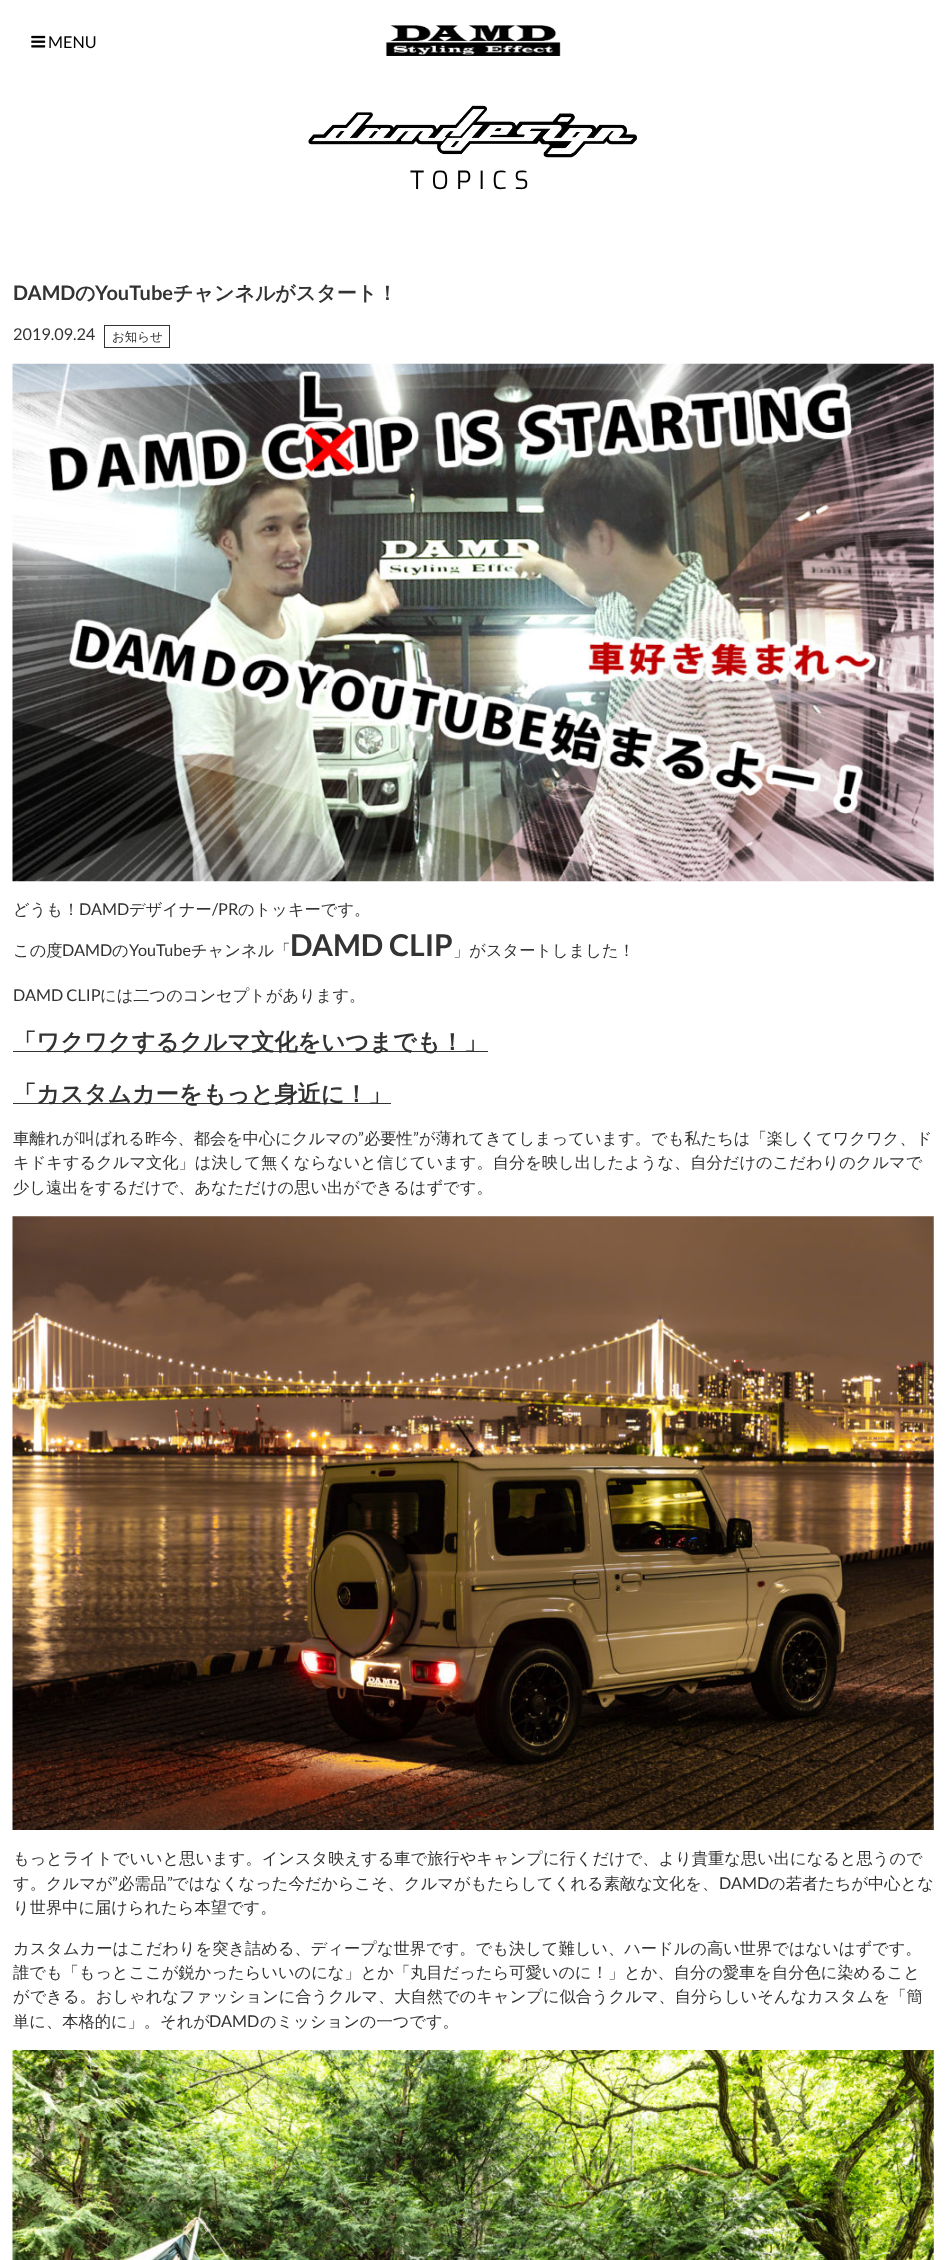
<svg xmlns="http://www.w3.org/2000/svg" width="946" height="2260">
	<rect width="100%" height="100%" fill="#FFFFFF" />
	<image x="31" y="35" width="15" height="13" href="assets/img1.png" />
	<text x="48" y="48" font-family="Lato" font-size="16.25" fill="#000000">MENU</text>
	<image x="385" y="25" width="176" height="31" href="assets/img2.png" />
	<image x="308" y="105" width="329" height="53" href="assets/img3.png" />
	<text x="410" y="189" font-family="Exo" font-size="25" letter-spacing="7.5" fill="#000000">TOPICS</text>
	<text x="13" y="300" font-family="Lato" font-size="20" font-weight="700" fill="#333333">DAMD</text>
	<text x="75" y="300" font-family="WenQuanYi Zen Hei" font-size="20" font-weight="700" fill="#333333">の</text>
	<text x="95" y="300" font-family="Lato" font-size="20" font-weight="700" fill="#333333">YouTube</text>
	<text x="173" y="300" font-family="WenQuanYi Zen Hei" font-size="20" font-weight="700" fill="#333333">チャンネルがスタート！</text>
	<text x="13" y="340" font-family="Lato" font-size="16.25" fill="#333333">2019.09.24</text>
	<rect x="104.5" y="325.5" width="65" height="22" fill="none" stroke="#333333" />
	<text x="112" y="341" font-family="WenQuanYi Zen Hei" font-size="12.5" font-weight="500" fill="#333333">お知らせ</text>
	<image x="12" y="363" width="922" height="519" href="assets/img4.png" />
	<text x="13" y="915" font-family="WenQuanYi Zen Hei" font-size="16.25" font-weight="500" fill="#333333">どうも！</text>
	<text x="79" y="915" font-family="Lato" font-size="16.25" fill="#333333">DAMD</text>
	<text x="129" y="915" font-family="WenQuanYi Zen Hei" font-size="16.25" font-weight="500" fill="#333333">デザイナー</text>
	<text x="212" y="915" font-family="Lato" font-size="16.25" fill="#333333">/PR</text>
	<g font-family="WenQuanYi Zen Hei" font-size="16.25" font-weight="500" fill="#333333">
		<text x="238" y="915">のトッキーです。</text>
		<text x="13" y="956">この度</text>
	</g>
	<text x="62" y="956" font-family="Lato" font-size="16.25" fill="#333333">DAMD</text>
	<text x="112" y="956" font-family="WenQuanYi Zen Hei" font-size="16.25" font-weight="500" fill="#333333">の</text>
	<text x="129" y="956" font-family="Lato" font-size="16.25" fill="#333333">YouTube</text>
	<text x="191" y="956" font-family="WenQuanYi Zen Hei" font-size="16.25" font-weight="500" fill="#333333">チャンネル「</text>
	<text x="290" y="956" font-family="Lato" font-size="30" font-weight="700" fill="#333333">DAMD CLIP</text>
	<text x="453" y="956" font-family="WenQuanYi Zen Hei" font-size="16.25" font-weight="500" fill="#333333">」がスタートしました！</text>
	<text x="13" y="1001" font-family="Lato" font-size="16.25" fill="#333333">DAMD CLIP</text>
	<text x="100" y="1001" font-family="WenQuanYi Zen Hei" font-size="16.25" font-weight="500" fill="#333333">には二つのコンセプトがあります。</text>
	<rect x="13" y="1051" width="475" height="1" fill="#333333" />
	<text x="13" y="1050" font-family="WenQuanYi Zen Hei" font-size="23.3" font-weight="700" fill="#333333">「ワクワクするクルマ文化をいつまでも！」</text>
	<rect x="13" y="1103" width="378" height="1" fill="#333333" />
	<text x="13" y="1102" font-family="WenQuanYi Zen Hei" font-size="23.3" font-weight="700" fill="#333333">「カスタムカーをもっと身近に！」</text>
	<text x="13" y="1144" font-family="WenQuanYi Zen Hei" font-size="16.25" font-weight="500" fill="#333333">車離れが叫ばれる昨今、都会を中心にクルマの</text>
	<text x="358" y="1144" font-family="Lato" font-size="16.25" fill="#333333">”</text>
	<text x="364" y="1144" font-family="WenQuanYi Zen Hei" font-size="16.25" font-weight="500" fill="#333333">必要性</text>
	<text x="413" y="1144" font-family="Lato" font-size="16.25" fill="#333333">”</text>
	<g font-family="WenQuanYi Zen Hei" font-size="16.25" font-weight="500" fill="#333333">
		<text x="419" y="1144">が薄れてきてしまっています。でも私たちは「楽しくてワクワク、ド</text>
		<text x="13" y="1168">キドキするクルマ文化」は決して無くならないと信じています。自分を映し出したような、自分だけのこだわりのクルマで</text>
		<text x="13" y="1193">少し遠出をするだけで、あなただけの思い出ができるはずです。</text>
	</g>
	<image x="12" y="1216" width="922" height="614" href="assets/img5.png" />
	<g font-family="WenQuanYi Zen Hei" font-size="16.25" font-weight="500" fill="#333333">
		<text x="13" y="1864">もっとライトでいいと思います。インスタ映えする車で旅行やキャンプに行くだけで、より貴重な思い出になると思うので</text>
		<text x="13" y="1889">す。クルマが</text>
	</g>
	<text x="112" y="1889" font-family="Lato" font-size="16.25" fill="#333333">”</text>
	<text x="118" y="1889" font-family="WenQuanYi Zen Hei" font-size="16.25" font-weight="500" fill="#333333">必需品</text>
	<text x="167" y="1889" font-family="Lato" font-size="16.25" fill="#333333">”</text>
	<text x="172" y="1889" font-family="WenQuanYi Zen Hei" font-size="16.25" font-weight="500" fill="#333333">ではなくなった今だからこそ、クルマがもたらしてくれる素敵な文化を、</text>
	<text x="719" y="1889" font-family="Lato" font-size="16.25" fill="#333333">DAMD</text>
	<g font-family="WenQuanYi Zen Hei" font-size="16.25" font-weight="500" fill="#333333">
		<text x="769" y="1889">の若者たちが中心とな</text>
		<text x="13" y="1913">り世界中に届けられたら本望です。</text>
		<text x="13" y="1954">カスタムカーはこだわりを突き詰める、ディープな世界です。でも決して難しい、ハードルの高い世界ではないはずです。</text>
		<text x="13" y="1978">誰でも「もっとここが鋭かったらいいのにな」とか「丸目だったら可愛いのに！」とか、自分の愛車を自分色に染めること</text>
		<text x="13" y="2002">ができる。おしゃれなファッションに合うクルマ、大自然でのキャンプに似合うクルマ、自分らしいそんなカスタムを「簡</text>
		<text x="13" y="2027">単に、本格的に」。それが</text>
	</g>
	<text x="209" y="2027" font-family="Lato" font-size="16.25" fill="#333333">DAMD</text>
	<text x="260" y="2027" font-family="WenQuanYi Zen Hei" font-size="16.25" font-weight="500" fill="#333333">のミッションの一つです。</text>
	<image x="12" y="2050" width="922" height="210" href="assets/img6.png" />
</svg>
